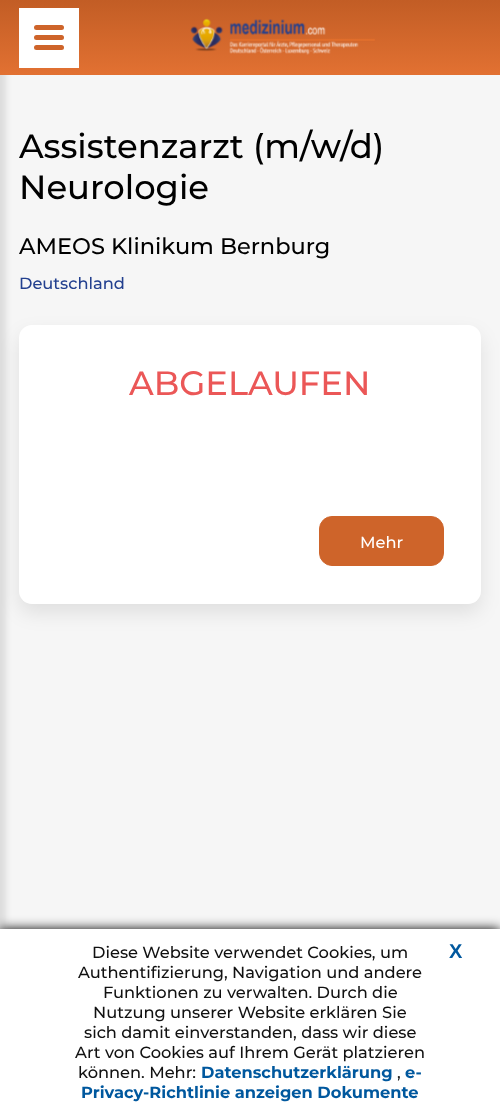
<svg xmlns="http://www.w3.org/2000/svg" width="500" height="1114">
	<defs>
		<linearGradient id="g1" gradientUnits="userSpaceOnUse" x1="250" y1="0" x2="250" y2="75"><stop offset="0" stop-color="#C25D25" /><stop offset="1" stop-color="#E27132" /></linearGradient>
	</defs>
	<rect width="100%" height="100%" fill="#F6F6F6" />
	<rect x="-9" y="-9" width="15" height="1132" fill="#000000" fill-opacity="0.1" filter="blur(3px)" />
	<rect x="0" y="0" width="500" height="75" fill="url(#g1)" />
	<rect x="19" y="8" width="60" height="60" fill="#FFFFFF" />
	<rect x="34" y="35" width="30" height="5" rx="2.5" fill="#CE642A" />
	<rect x="34" y="25" width="30" height="5" rx="2.5" fill="#CE642A" />
	<rect x="34" y="45" width="30" height="5" rx="2.5" fill="#CE642A" />
	<image x="190" y="18" width="185" height="37" href="assets/img1.png" />
	<g font-family="Montserrat" font-size="33.75" font-weight="500" fill="#000000">
		<text x="19" y="158">Assistenzarzt (m/w/d)</text>
		<text x="19" y="199">Neurologie</text>
	</g>
	<text x="19" y="254" font-family="Montserrat" font-size="22.5" font-weight="500" fill="#000000">AMEOS Klinikum Bernburg</text>
	<text x="19" y="289" font-family="Montserrat" font-size="16.25" font-weight="500" fill="#23408F">Deutschland</text>
	<rect x="19" y="334" width="462" height="279" rx="13" fill="#000000" fill-opacity="0.09" filter="blur(9.5px)" />
	<rect x="19" y="325" width="462" height="279" rx="13" fill="#FFFFFF" />
	<text x="129" y="395" font-family="Montserrat" font-size="33.75" font-weight="500" fill="#EB5757">ABGELAUFEN</text>
	<rect x="319.5" y="516.5" width="124" height="49" rx="12.5" fill="#CE642A" stroke="#CE642A" />
	<text x="360" y="548" font-family="Montserrat" font-size="16.25" font-weight="500" fill="#FFFFFF">Mehr</text>
	<rect x="0" y="929" width="500" height="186" fill="#000000" filter="blur(6px)" />
	<rect x="0" y="929" width="500" height="185" fill="#FFFFFF" />
	<text x="92" y="958" font-family="Montserrat" font-size="16.25" font-weight="500" fill="#111111">Diese Website verwendet Cookies, um</text>
	<text x="449" y="958" font-family="Liberation Sans" font-size="20" font-weight="700" fill="#00589E">X</text>
	<g font-family="Montserrat" font-size="16.25" font-weight="500" fill="#111111">
		<text x="78" y="978">Authentifizierung, Navigation und andere</text>
		<text x="103" y="998">Funktionen zu verwalten. Durch die</text>
		<text x="93" y="1018">Nutzung unserer Website erklären Sie</text>
		<text x="84" y="1038">sich damit einverstanden, dass wir diese</text>
		<text x="75" y="1058">Art von Cookies auf Ihrem Gerät platzieren</text>
		<text x="78" y="1078">können. Mehr:</text>
	</g>
	<text x="201" y="1078" font-family="Montserrat" font-size="16.25" font-weight="700" fill="#00589E">Datenschutzerklärung</text>
	<text x="397" y="1078" font-family="Montserrat" font-size="16.25" font-weight="500" fill="#111111">,</text>
	<g font-family="Montserrat" font-size="16.25" font-weight="700" fill="#00589E">
		<text x="405" y="1078">e-</text>
		<text x="81" y="1098">Privacy-Richtlinie anzeigen Dokumente</text>
	</g>
</svg>
